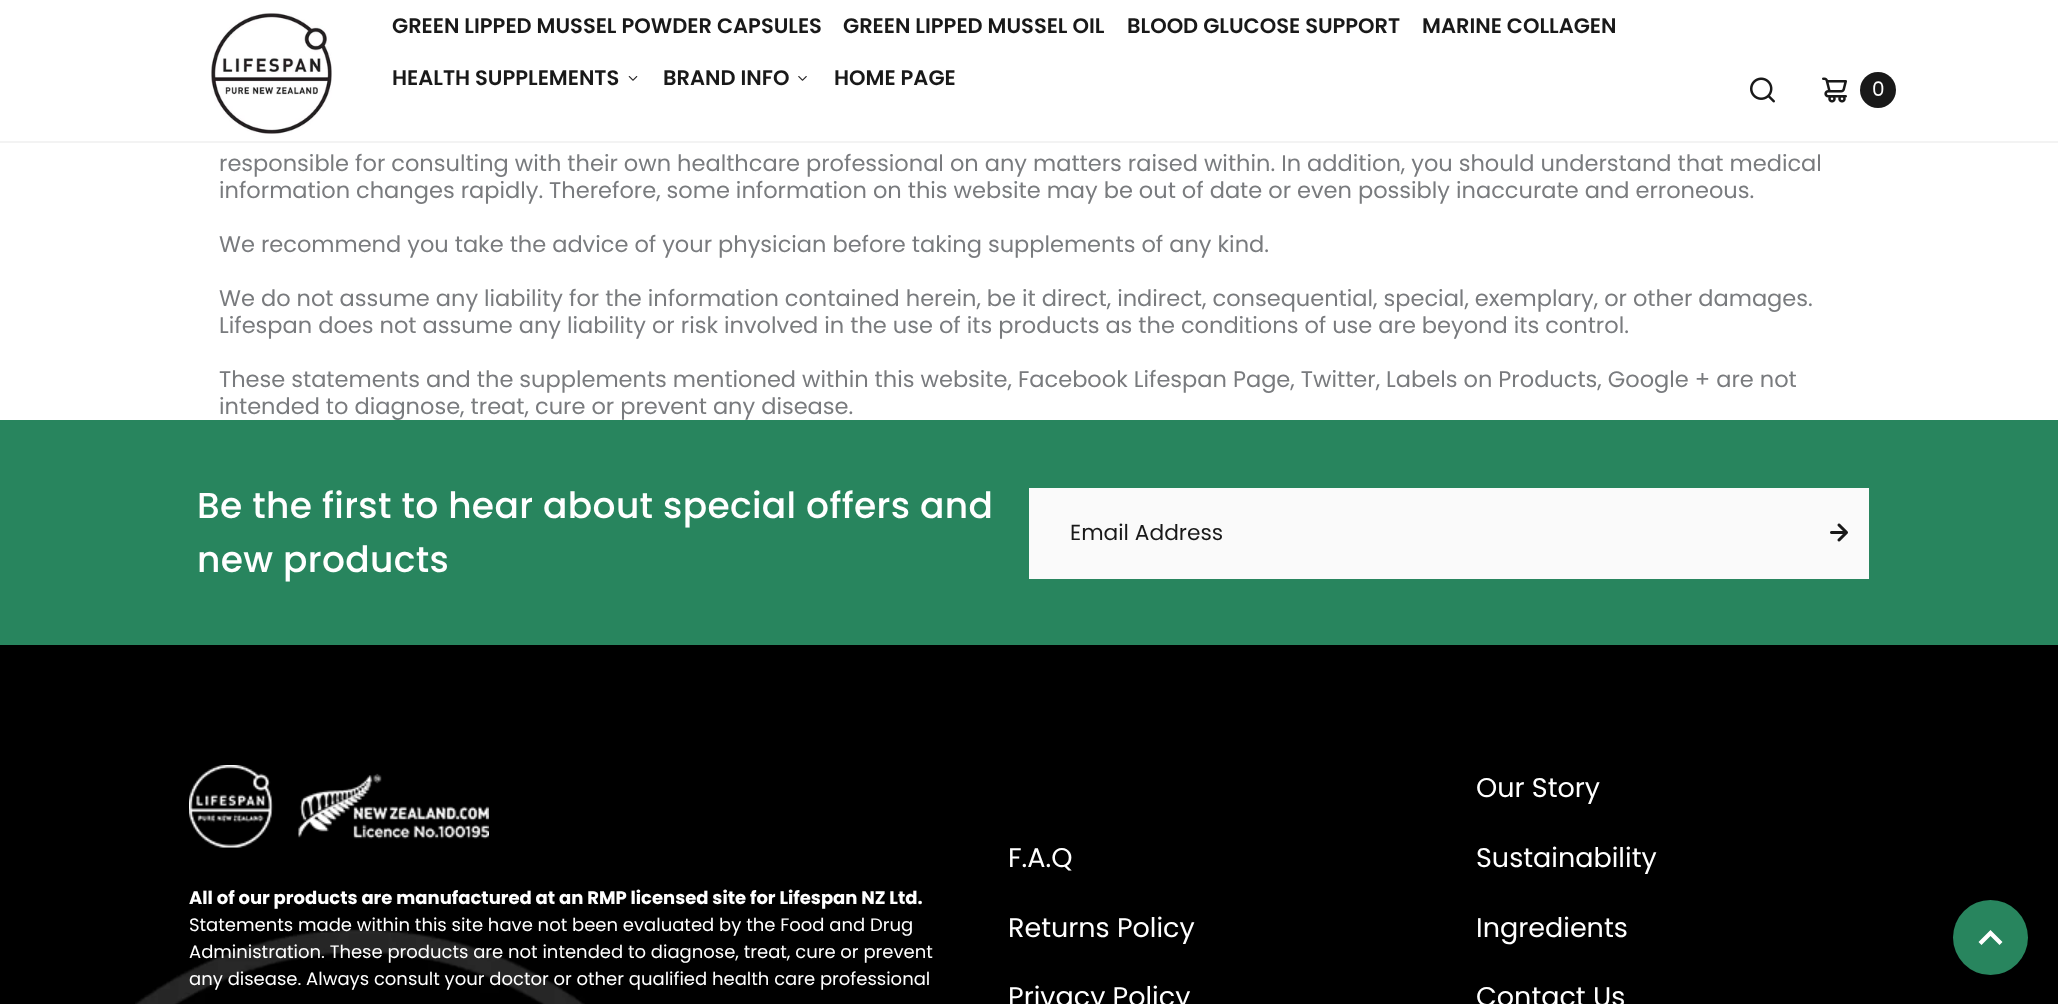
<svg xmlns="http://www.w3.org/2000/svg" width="2058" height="1004">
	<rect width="100%" height="100%" fill="#FFFFFF" />
	<rect x="0" y="141" width="2058" height="2" fill="#F3F3F3" />
	<image x="211" y="13" width="121" height="121" href="assets/img1.png" />
	<g font-family="Poppins" font-size="21" font-weight="600" fill="#191919">
		<text x="392" y="33">GREEN LIPPED MUSSEL POWDER CAPSULES</text>
		<text x="843" y="33">GREEN LIPPED MUSSEL OIL</text>
		<text x="1127" y="33">BLOOD GLUCOSE SUPPORT</text>
		<text x="1422" y="33">MARINE COLLAGEN</text>
		<text x="392" y="85">HEALTH SUPPLEMENTS</text>
	</g>
	<image x="628" y="76" width="10" height="5" href="assets/img2.png" />
	<text x="663" y="85" font-family="Poppins" font-size="21" font-weight="600" fill="#191919">BRAND INFO</text>
	<image x="798" y="76" width="9" height="5" href="assets/img3.png" />
	<text x="834" y="85" font-family="Poppins" font-size="21" font-weight="600" fill="#191919">HOME PAGE</text>
	<image x="1750" y="77" width="25" height="26" href="assets/img4.png" />
	<image x="1822" y="77" width="25" height="26" href="assets/img5.png" />
	<circle cx="1878" cy="90" r="18" fill="#191919" />
	<text x="1872" y="96" font-family="Poppins" font-size="20" fill="#FFFFFF">0</text>
	<g font-family="Poppins" font-size="22.5" fill="#797B7E">
		<text x="219" y="171">responsible for consulting with their own healthcare professional on any matters raised within. In addition, you should understand that medical</text>
		<text x="219" y="198">information changes rapidly. Therefore, some information on this website may be out of date or even possibly inaccurate and erroneous.</text>
		<text x="219" y="252">We recommend you take the advice of your physician before taking supplements of any kind.</text>
		<text x="219" y="306">We do not assume any liability for the information contained herein, be it direct, indirect, consequential, special, exemplary, or other damages.</text>
		<text x="219" y="333">Lifespan does not assume any liability or risk involved in the use of its products as the conditions of use are beyond its control.</text>
		<text x="219" y="387">These statements and the supplements mentioned within this website, Facebook Lifespan Page, Twitter, Labels on Products, Google + are not</text>
		<text x="219" y="414">intended to diagnose, treat, cure or prevent any disease.</text>
	</g>
	<rect x="0" y="420" width="2058" height="225" fill="#28855E" />
	<g font-family="Poppins" font-size="36" font-weight="500" letter-spacing="0.35" fill="#FFFFFF">
		<text x="197" y="518">Be the first to hear about special offers and</text>
		<text x="197" y="572">new products</text>
	</g>
	<rect x="1030" y="489" width="838" height="89" fill="#FAFAFA" stroke="#FAFAFA" stroke-width="2" />
	<text x="1070" y="540" font-family="Poppins" font-size="21.75" fill="#191919">Email Address</text>
	<image x="1830" y="523" width="18" height="19" href="assets/img6.png" />
	<rect x="0" y="645" width="2058" height="359" fill="#000000" />
	<image x="135" y="929" width="450" height="75" href="assets/img7.png" />
	<image x="189" y="765" width="300" height="83" href="assets/img8.png" />
	<text x="189" y="904" font-family="Poppins" font-size="18" font-weight="700" fill="#FFFFFF">All of our products are manufactured at an RMP licensed site for Lifespan NZ Ltd.</text>
	<g font-family="Poppins" font-size="18" fill="#FFFFFF">
		<text x="189" y="931">Statements made within this site have not been evaluated by the Food and Drug</text>
		<text x="189" y="958">Administration. These products are not intended to diagnose, treat, cure or prevent</text>
		<text x="189" y="985">any disease. Always consult your doctor or other qualified health care professional</text>
	</g>
	<g font-family="Poppins" font-size="27" fill="#FFFFFF">
		<text x="1008" y="867">F.A.Q</text>
		<text x="1008" y="937">Returns Policy</text>
		<text x="1008" y="1006">Privacy Policy</text>
		<text x="1476" y="797">Our Story</text>
		<text x="1476" y="867">Sustainability</text>
		<text x="1476" y="937">Ingredients</text>
		<text x="1476" y="1006">Contact Us</text>
	</g>
	<circle cx="1990.5" cy="937.5" r="37.5" fill="#28855E" />
	<path d="M2002.5 942L1999.5 945L1990.5 936L1981.5 945L1978.5 942L1990.5 930Z" fill="#FFFFFF" />
</svg>
